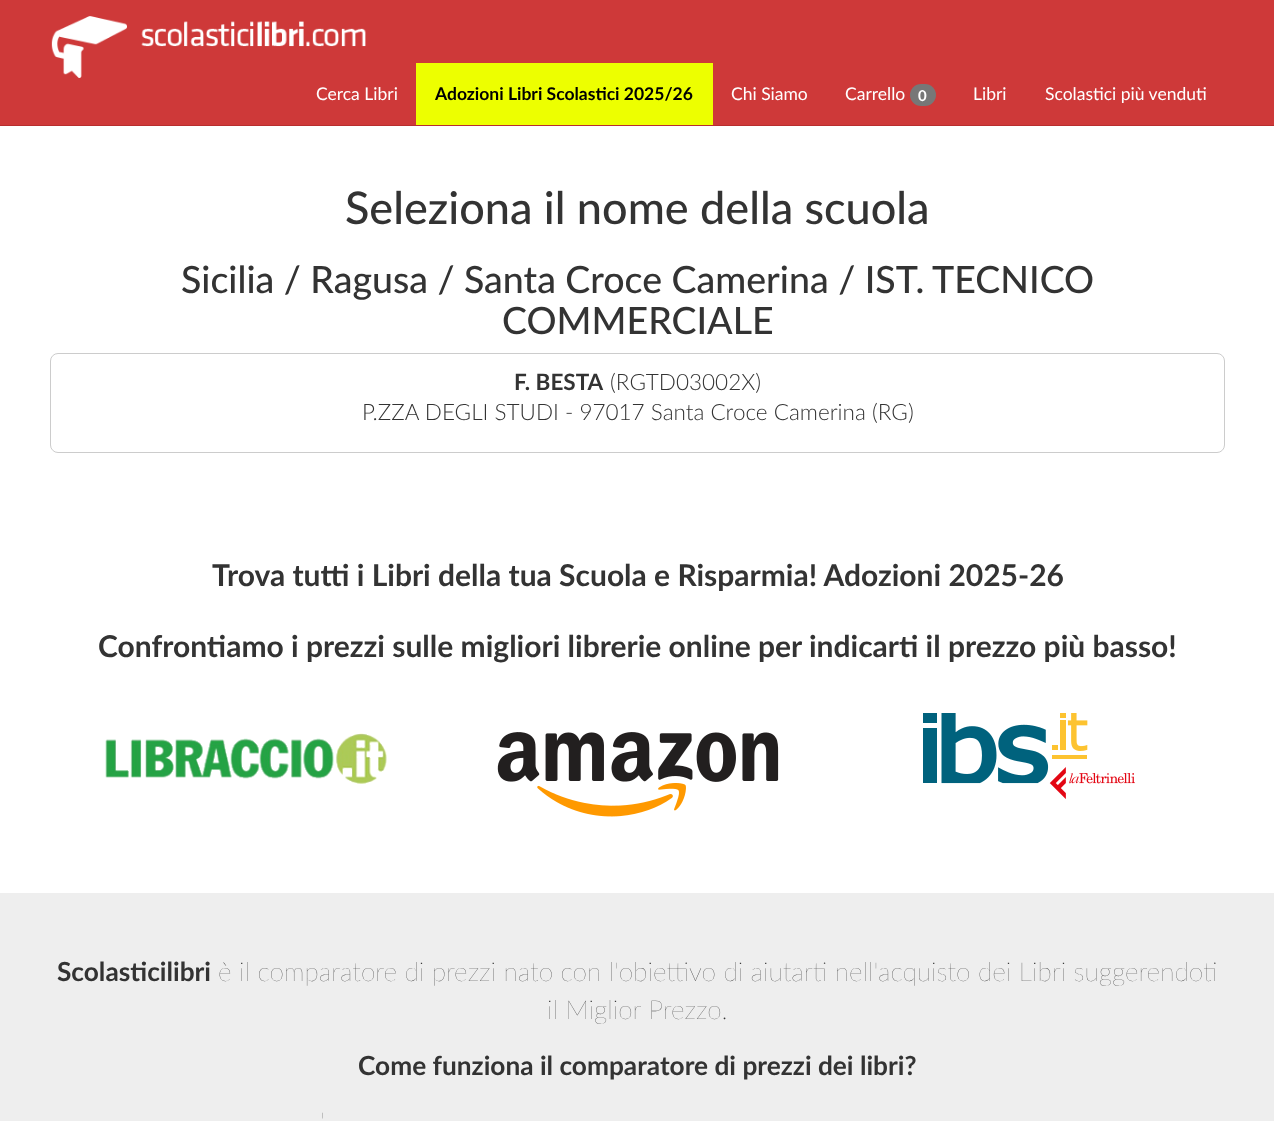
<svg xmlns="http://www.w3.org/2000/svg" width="1274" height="1121">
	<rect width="100%" height="100%" fill="#FFFFFF" />
	<rect x="0" y="0" width="1274" height="125" fill="#CE3939" />
	<rect x="0" y="125" width="1274" height="1" fill="#B82E2E" />
	<image x="51" y="16" width="315" height="62" href="assets/img1.png" />
	<text x="316" y="100" font-family="Lato" font-size="17.5" fill="#FFFFFF">Cerca Libri</text>
	<rect x="416" y="63" width="297" height="62" fill="#EDFF00" />
	<text x="435" y="100" font-family="Lato" font-size="17.5" font-weight="700" fill="#000000">Adozioni Libri Scolastici 2025/26</text>
	<g font-family="Lato" font-size="17.5" fill="#FFFFFF">
		<text x="731" y="100">Chi Siamo</text>
		<text x="845" y="100">Carrello</text>
	</g>
	<rect x="910" y="84" width="26" height="22" rx="11" fill="#777777" />
	<text x="918" y="101" font-family="Lato" font-size="15" font-weight="700" fill="#FFFFFF">0</text>
	<g font-family="Lato" font-size="17.5" fill="#FFFFFF">
		<text x="973" y="100">Libri</text>
		<text x="1045" y="100">Scolastici più venduti</text>
	</g>
	<text x="345" y="224" font-family="Lato" font-size="45" font-weight="500" fill="#333333">Seleziona il nome della scuola</text>
	<g font-family="Lato" font-size="37.5" font-weight="500" fill="#333333">
		<text x="181" y="293">Sicilia / Ragusa / Santa Croce Camerina / IST.</text>
		<text x="932" y="293">TECNICO</text>
		<text x="502" y="334">COMMERCIALE</text>
	</g>
	<rect x="50.5" y="353.5" width="1174" height="99" rx="7.5" fill="none" stroke="#CCCCCC" />
	<text x="514" y="390" font-family="Lato" font-size="22.5" font-weight="700" fill="#333333">F. BESTA</text>
	<g font-family="Lato" font-size="22.5" font-weight="300" fill="#333333">
		<text x="610" y="390">(RGTD03002X)</text>
		<text x="362" y="420">P.ZZA DEGLI STUDI - 97017 Santa Croce Camerina (RG)</text>
	</g>
	<g font-family="Lato" font-size="30" font-weight="700" fill="#333333">
		<text x="212" y="586">Trova tutti i Libri della tua Scuola e Risparmia! Adozioni 2025-26</text>
		<text x="98" y="657">Confrontiamo i prezzi sulle migliori librerie online per indicarti il prezzo più basso!</text>
	</g>
	<image x="105" y="733" width="282" height="51" href="assets/img2.png" />
	<image x="497" y="732" width="282" height="85" href="assets/img3.png" />
	<image x="923" y="713" width="212" height="86" href="assets/img4.png" />
	<rect x="0" y="893" width="1274" height="228" fill="#EEEEEE" />
	<text x="57" y="981" font-family="Lato" font-size="26.25" font-weight="700" fill="#333333">Scolasticilibri</text>
	<g font-family="Lato" font-size="26.25" font-weight="200" fill="#333333">
		<text x="218" y="981">è il comparatore di prezzi nato con l'obiettivo di aiutarti nell'acquisto dei Libri suggerendoti</text>
		<text x="547" y="1019">il Miglior Prezzo.</text>
	</g>
	<text x="358" y="1075" font-family="Lato" font-size="26.25" font-weight="700" fill="#333333">Come funziona il comparatore di prezzi dei libri?</text>
	<text x="320" y="1131" font-family="Lato" font-size="26.25" font-weight="200" fill="#333333">'</text>
</svg>
